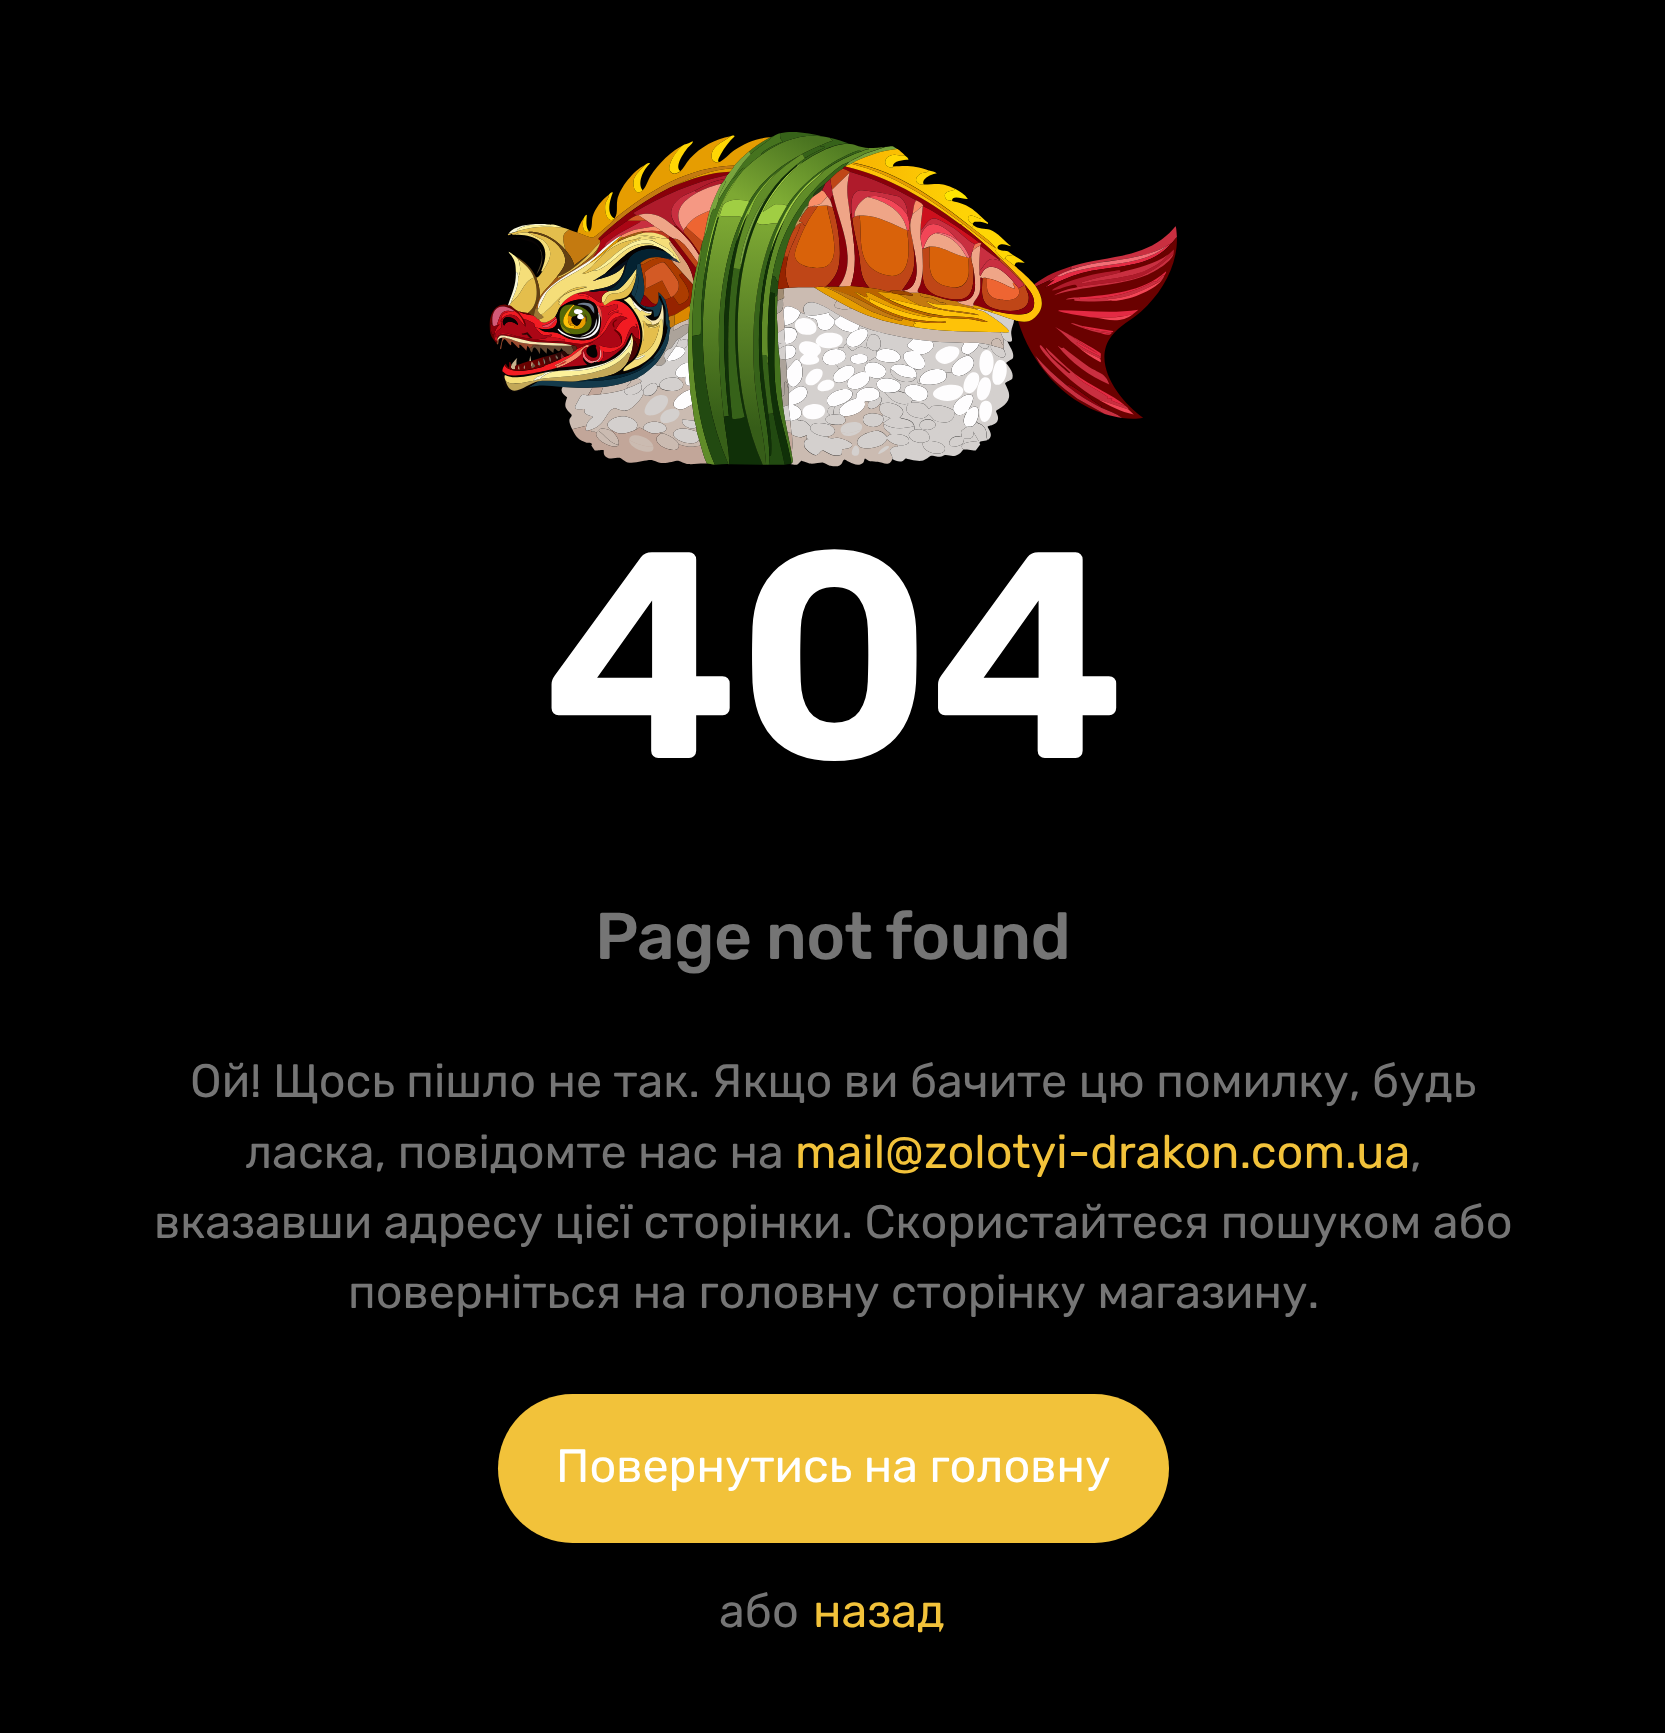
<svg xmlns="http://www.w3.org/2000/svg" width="1665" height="1733">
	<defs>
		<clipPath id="clip1"><rect x="814" y="1579" width="132" height="68" rx="34" /></clipPath>
	</defs>
	<rect width="100%" height="100%" fill="#000000" />
	<image x="489" y="132" width="688" height="335" href="assets/img1.png" />
	<text x="543" y="758" font-family="Rubik" font-size="294" font-weight="600" letter-spacing="-3" fill="#FFFFFF">404</text>
	<text x="595" y="959" font-family="Rubik" font-size="66" font-weight="300" letter-spacing="-0.7" fill="#757575">Page not found</text>
	<g font-family="'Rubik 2'" font-size="46.75" font-weight="300" fill="#757575">
		<text x="190" y="1097">Ой! Щось пішло не так. Якщо ви бачите цю помилку, будь</text>
		<text x="245" y="1168">ласка, повідомте нас на</text>
	</g>
	<text x="795" y="1168" font-family="'Rubik 2'" font-size="46.75" font-weight="300" fill="#F2C23A">mail@zolotyi-drakon.com.ua</text>
	<g font-family="'Rubik 2'" font-size="46.75" font-weight="300" fill="#757575">
		<text x="1410" y="1168">,</text>
		<text x="154" y="1238">вказавши адресу цієї сторінки. Скористайтеся пошуком або</text>
		<text x="348" y="1308">поверніться на головну сторінку магазину.</text>
	</g>
	<rect x="498" y="1394" width="671" height="149" rx="74.5" fill="#F2C23A" />
	<text x="556" y="1482" font-family="'Rubik 2'" font-size="46.75" font-weight="300" fill="#FFFFFF">Повернутись на головну</text>
	<text x="719" y="1627" font-family="'Rubik 2'" font-size="46.75" font-weight="300" fill="#757575">або</text>
	<g clip-path="url(#clip1)">
		<text x="813" y="1627" font-family="'Rubik 2'" font-size="46.75" font-weight="300" fill="#F2C23A">назад</text>
	</g>
</svg>
